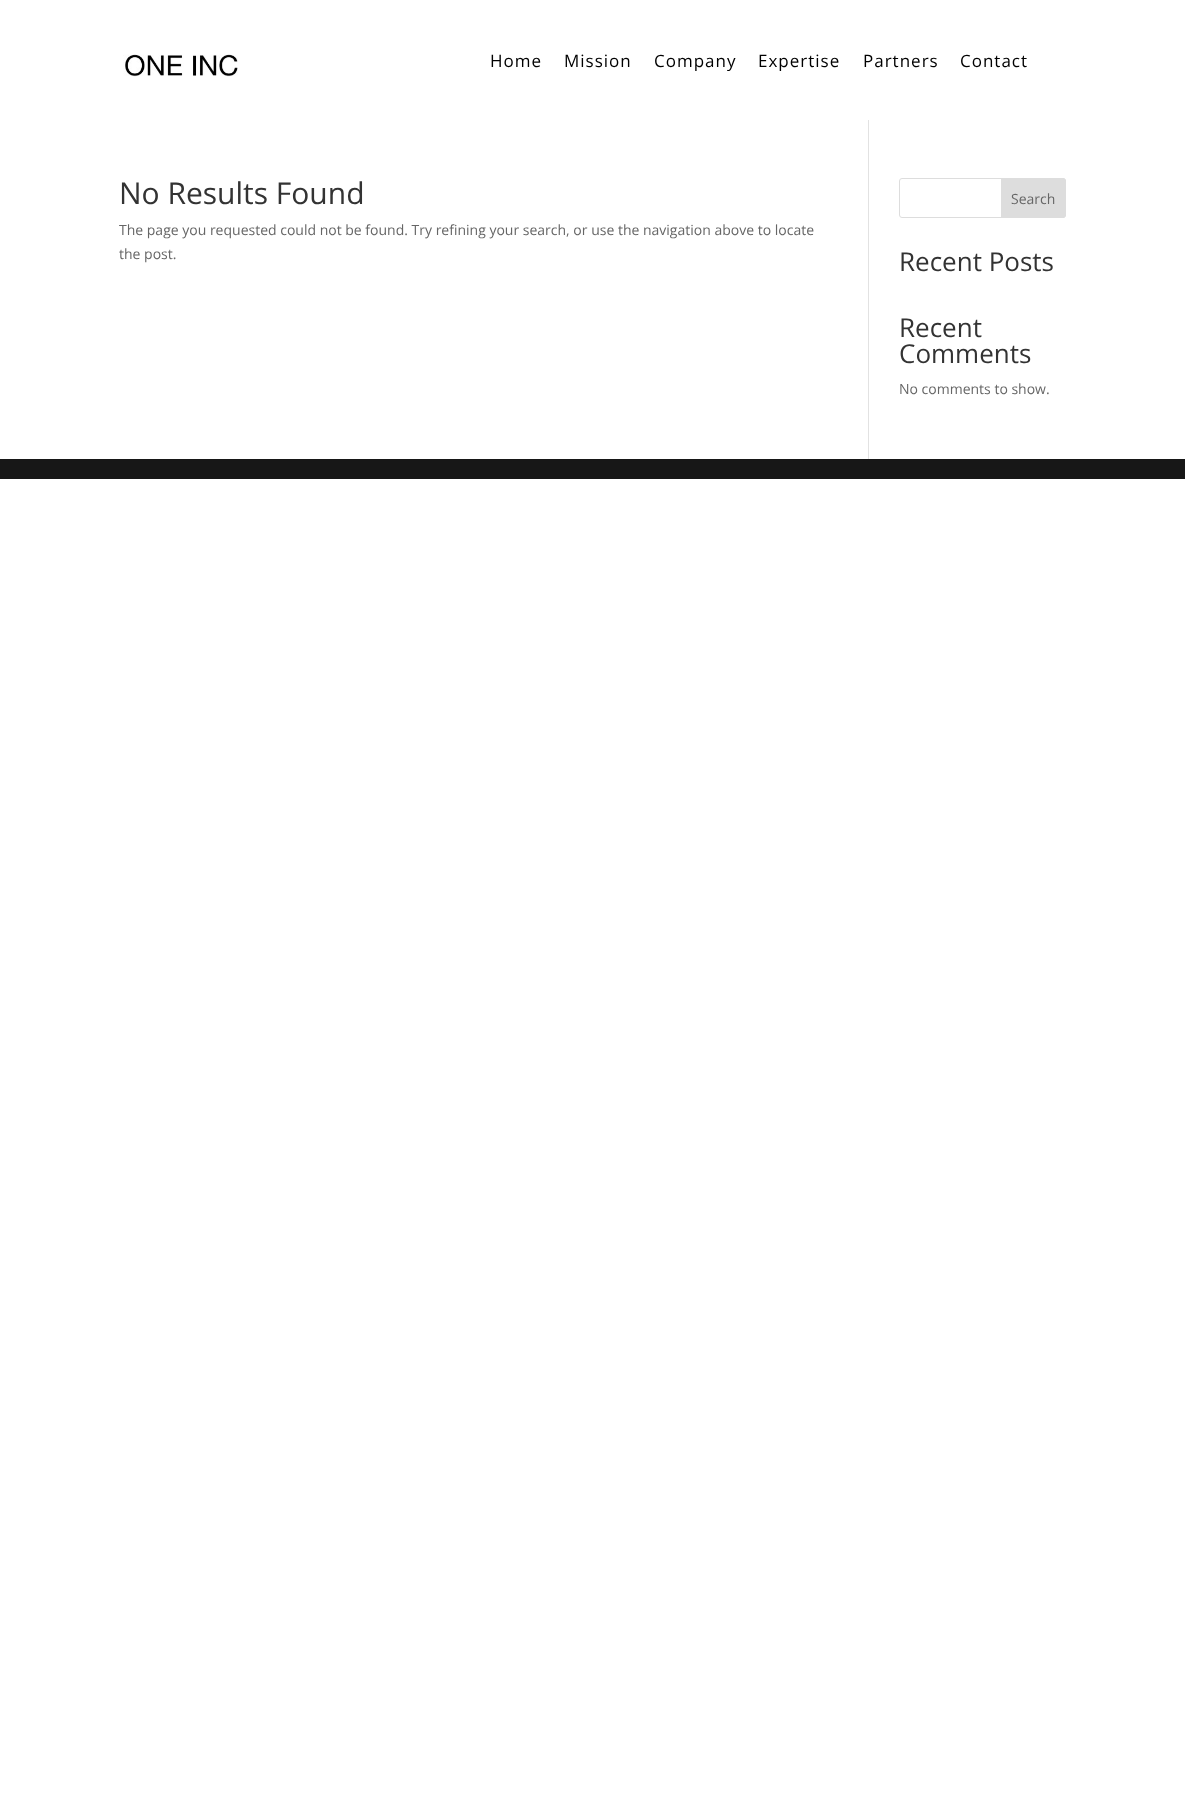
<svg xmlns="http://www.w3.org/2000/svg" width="1185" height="1810">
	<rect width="100%" height="100%" fill="#FFFFFF" />
	<image x="123" y="54" width="115" height="23" href="assets/img1.png" />
	<g font-family="Open Sans" font-size="17" letter-spacing="1" fill="#000000">
		<text x="490" y="67">Home</text>
		<text x="564" y="67">Mission</text>
		<text x="654" y="67">Company</text>
		<text x="758" y="67">Expertise</text>
		<text x="863" y="67">Partners</text>
		<text x="960" y="67">Contact</text>
	</g>
	<rect x="868" y="120" width="1" height="339" fill="#E2E2E2" />
	<text x="119" y="204" font-family="Open Sans" font-size="30" fill="#333333">No Results Found</text>
	<g font-family="Open Sans" font-size="14" fill="#666666">
		<text x="119" y="235">The page you requested could not be found. Try refining your search, or use the navigation above to locate</text>
		<text x="119" y="259">the post.</text>
	</g>
	<rect x="899.5" y="178.5" width="166" height="39" rx="2.5" fill="none" stroke="#DDDDDD" />
	<path d="M1001.5 178.5H1063C1064.5 178.5 1065.5 179.5 1065.5 181V215C1065.5 216.5 1064.5 217.5 1063 217.5H1001.5Z" fill="#DDDDDD" stroke="#DDDDDD" />
	<text x="1011" y="204" font-family="Open Sans" font-size="14" fill="#666666">Search</text>
	<g font-family="Open Sans" font-size="26" fill="#333333">
		<text x="899" y="271">Recent Posts</text>
		<text x="899" y="337">Recent</text>
		<text x="899" y="363">Comments</text>
	</g>
	<text x="899" y="394" font-family="Open Sans" font-size="14" fill="#666666">No comments to show.</text>
	<rect x="0" y="459" width="1185" height="20" fill="#171717" />
</svg>
